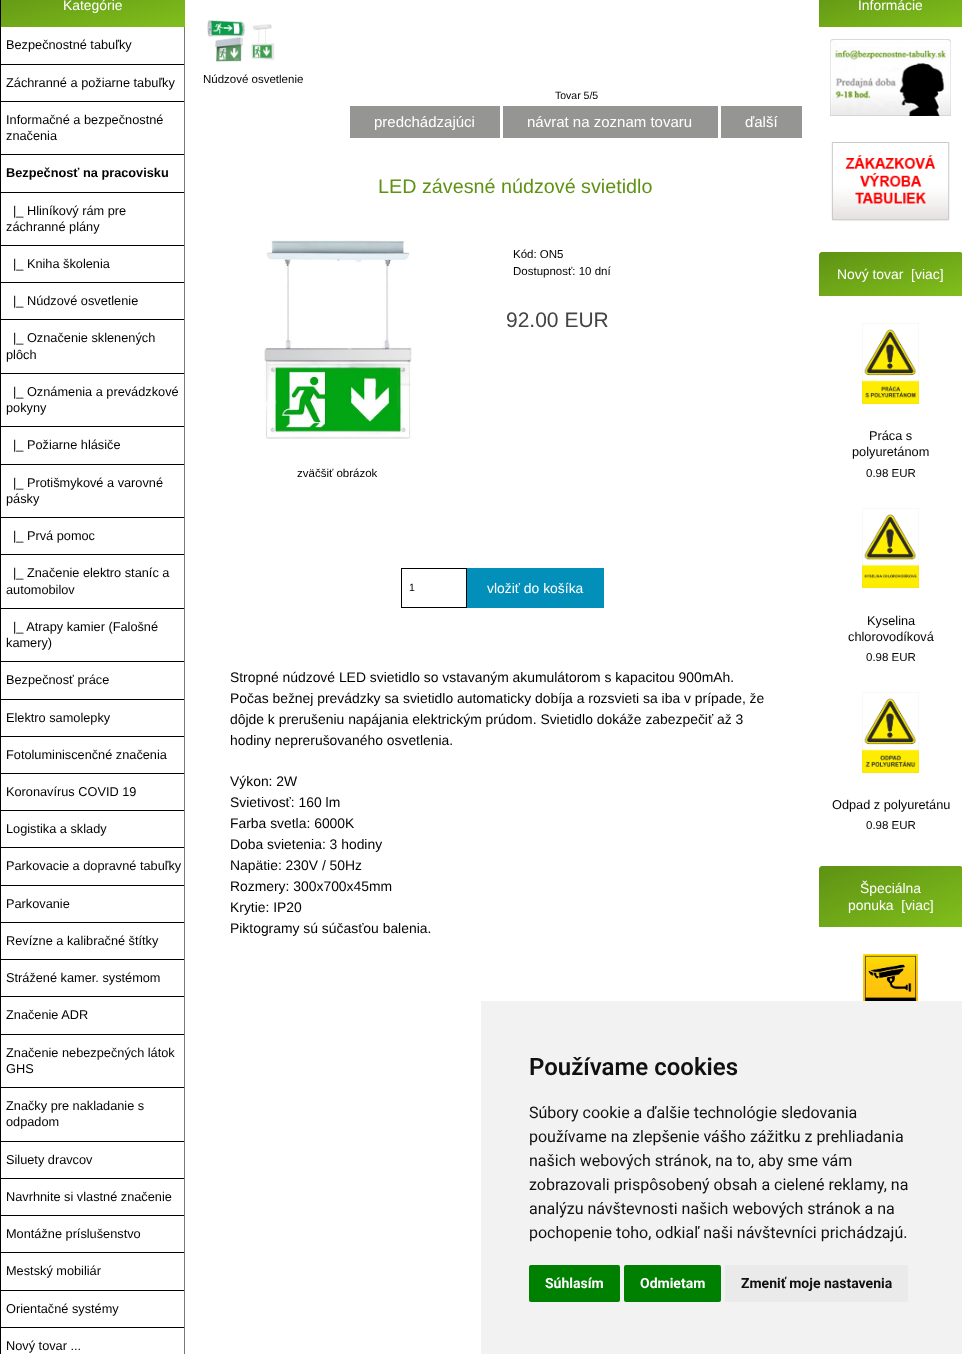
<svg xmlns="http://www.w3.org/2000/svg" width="962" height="1354">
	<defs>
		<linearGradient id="g1" gradientUnits="userSpaceOnUse" x1="83" y1="-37" x2="103" y2="47"><stop offset="0" stop-color="#5E9214" /><stop offset="1" stop-color="#81BF1C" /></linearGradient>
		<linearGradient id="g2" gradientUnits="userSpaceOnUse" x1="879" y1="-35" x2="903" y2="45"><stop offset="0" stop-color="#5E9214" /><stop offset="1" stop-color="#81BF1C" /></linearGradient>
		<linearGradient id="g3" gradientUnits="userSpaceOnUse" x1="879" y1="234" x2="903" y2="314"><stop offset="0" stop-color="#5E9214" /><stop offset="1" stop-color="#81BF1C" /></linearGradient>
		<linearGradient id="g4" gradientUnits="userSpaceOnUse" x1="869" y1="845" x2="913" y2="948"><stop offset="0" stop-color="#5E9214" /><stop offset="1" stop-color="#81BF1C" /></linearGradient>
	</defs>
	<rect width="100%" height="100%" fill="#FFFFFF" />
	<rect x="0" y="0" width="1" height="1354" fill="#000000" />
	<rect x="1" y="0" width="184" height="27" fill="url(#g1)" />
	<text x="63" y="10" font-family="Liberation Sans" font-size="13.9" fill="#FFFFFF">Kategórie</text>
	<rect x="184" y="27" width="1" height="1327" fill="#787878" />
	<rect x="1" y="64" width="183" height="1" fill="#000000" />
	<text x="6" y="49" font-family="Liberation Sans" font-size="12.75" fill="#000000">Bezpečnostné tabuľky</text>
	<rect x="1" y="101" width="183" height="1" fill="#000000" />
	<text x="6" y="87" font-family="Liberation Sans" font-size="12.75" fill="#000000">Záchranné a požiarne tabuľky</text>
	<rect x="1" y="154" width="183" height="1" fill="#000000" />
	<g font-family="Liberation Sans" font-size="12.75" fill="#000000">
		<text x="6" y="124">Informačné a bezpečnostné</text>
		<text x="6" y="140">značenia</text>
	</g>
	<rect x="1" y="192" width="183" height="1" fill="#000000" />
	<text x="6" y="177" font-family="Liberation Sans" font-size="12.75" font-weight="700" fill="#000000">Bezpečnosť na pracovisku</text>
	<rect x="1" y="245" width="183" height="1" fill="#000000" />
	<g font-family="Liberation Sans" font-size="12.75" fill="#000000">
		<text x="13" y="215">|_ Hliníkový rám pre</text>
		<text x="6" y="231">záchranné plány</text>
	</g>
	<rect x="1" y="282" width="183" height="1" fill="#000000" />
	<text x="13" y="268" font-family="Liberation Sans" font-size="12.75" fill="#000000">|_ Kniha školenia</text>
	<rect x="1" y="319" width="183" height="1" fill="#000000" />
	<text x="13" y="305" font-family="Liberation Sans" font-size="12.75" fill="#000000">|_ Núdzové osvetlenie</text>
	<rect x="1" y="373" width="183" height="1" fill="#000000" />
	<g font-family="Liberation Sans" font-size="12.75" fill="#000000">
		<text x="13" y="342">|_ Označenie sklenených</text>
		<text x="6" y="359">plôch</text>
	</g>
	<rect x="1" y="426" width="183" height="1" fill="#000000" />
	<g font-family="Liberation Sans" font-size="12.75" fill="#000000">
		<text x="13" y="396">|_ Oznámenia a prevádzkové</text>
		<text x="6" y="412">pokyny</text>
	</g>
	<rect x="1" y="464" width="183" height="1" fill="#000000" />
	<text x="13" y="449" font-family="Liberation Sans" font-size="12.75" fill="#000000">|_ Požiarne hlásiče</text>
	<rect x="1" y="517" width="183" height="1" fill="#000000" />
	<g font-family="Liberation Sans" font-size="12.75" fill="#000000">
		<text x="13" y="487">|_ Protišmykové a varovné</text>
		<text x="6" y="503">pásky</text>
	</g>
	<rect x="1" y="554" width="183" height="1" fill="#000000" />
	<text x="13" y="540" font-family="Liberation Sans" font-size="12.75" fill="#000000">|_ Prvá pomoc</text>
	<rect x="1" y="608" width="183" height="1" fill="#000000" />
	<g font-family="Liberation Sans" font-size="12.75" fill="#000000">
		<text x="13" y="577">|_ Značenie elektro staníc a</text>
		<text x="6" y="594">automobilov</text>
	</g>
	<rect x="1" y="661" width="183" height="1" fill="#000000" />
	<g font-family="Liberation Sans" font-size="12.75" fill="#000000">
		<text x="13" y="631">|_ Atrapy kamier (Falošné</text>
		<text x="6" y="647">kamery)</text>
	</g>
	<rect x="1" y="699" width="183" height="1" fill="#000000" />
	<text x="6" y="684" font-family="Liberation Sans" font-size="12.75" fill="#000000">Bezpečnosť práce</text>
	<rect x="1" y="736" width="183" height="1" fill="#000000" />
	<text x="6" y="722" font-family="Liberation Sans" font-size="12.75" fill="#000000">Elektro samolepky</text>
	<rect x="1" y="773" width="183" height="1" fill="#000000" />
	<text x="6" y="759" font-family="Liberation Sans" font-size="12.75" fill="#000000">Fotoluminiscenčné značenia</text>
	<rect x="1" y="810" width="183" height="1" fill="#000000" />
	<text x="6" y="796" font-family="Liberation Sans" font-size="12.75" fill="#000000">Koronavírus COVID 19</text>
	<rect x="1" y="847" width="183" height="1" fill="#000000" />
	<text x="6" y="833" font-family="Liberation Sans" font-size="12.75" fill="#000000">Logistika a sklady</text>
	<rect x="1" y="885" width="183" height="1" fill="#000000" />
	<text x="6" y="870" font-family="Liberation Sans" font-size="12.75" fill="#000000">Parkovacie a dopravné tabuľky</text>
	<rect x="1" y="922" width="183" height="1" fill="#000000" />
	<text x="6" y="908" font-family="Liberation Sans" font-size="12.75" fill="#000000">Parkovanie</text>
	<rect x="1" y="959" width="183" height="1" fill="#000000" />
	<text x="6" y="945" font-family="Liberation Sans" font-size="12.75" fill="#000000">Revízne a kalibračné štítky</text>
	<rect x="1" y="996" width="183" height="1" fill="#000000" />
	<text x="6" y="982" font-family="Liberation Sans" font-size="12.75" fill="#000000">Strážené kamer. systémom</text>
	<rect x="1" y="1034" width="183" height="1" fill="#000000" />
	<text x="6" y="1019" font-family="Liberation Sans" font-size="12.75" fill="#000000">Značenie ADR</text>
	<rect x="1" y="1087" width="183" height="1" fill="#000000" />
	<g font-family="Liberation Sans" font-size="12.75" fill="#000000">
		<text x="6" y="1057">Značenie nebezpečných látok</text>
		<text x="6" y="1073">GHS</text>
	</g>
	<rect x="1" y="1141" width="183" height="1" fill="#000000" />
	<g font-family="Liberation Sans" font-size="12.75" fill="#000000">
		<text x="6" y="1110">Značky pre nakladanie s</text>
		<text x="6" y="1126">odpadom</text>
	</g>
	<rect x="1" y="1178" width="183" height="1" fill="#000000" />
	<text x="6" y="1164" font-family="Liberation Sans" font-size="12.75" fill="#000000">Siluety dravcov</text>
	<rect x="1" y="1215" width="183" height="1" fill="#000000" />
	<text x="6" y="1201" font-family="Liberation Sans" font-size="12.75" fill="#000000">Navrhnite si vlastné značenie</text>
	<rect x="1" y="1252" width="183" height="1" fill="#000000" />
	<text x="6" y="1238" font-family="Liberation Sans" font-size="12.75" fill="#000000">Montážne príslušenstvo</text>
	<rect x="1" y="1290" width="183" height="1" fill="#000000" />
	<text x="6" y="1275" font-family="Liberation Sans" font-size="12.75" fill="#000000">Mestský mobiliár</text>
	<rect x="1" y="1327" width="183" height="1" fill="#000000" />
	<g font-family="Liberation Sans" font-size="12.75" fill="#000000">
		<text x="6" y="1313">Orientačné systémy</text>
		<text x="6" y="1350">Nový tovar ...</text>
	</g>
	<image x="207" y="20" width="68" height="42" href="assets/img1.png" />
	<text x="203" y="83" font-family="Liberation Sans" font-size="11.5" fill="#000000">Núdzové osvetlenie</text>
	<text x="555" y="99" font-family="Liberation Sans" font-size="10.5" fill="#000000">Tovar 5/5</text>
	<rect x="350" y="106" width="150" height="32" fill="#959694" />
	<text x="374" y="127" font-family="Liberation Sans" font-size="15" fill="#FFFFFF">predchádzajúci</text>
	<rect x="503" y="106" width="215" height="32" fill="#959694" />
	<text x="527" y="127" font-family="Liberation Sans" font-size="15" fill="#FFFFFF">návrat na zoznam tovaru</text>
	<rect x="721" y="106" width="81" height="32" fill="#959694" />
	<text x="745" y="127" font-family="Liberation Sans" font-size="15" fill="#FFFFFF">ďalší</text>
	<text x="378" y="193" font-family="Liberation Sans" font-size="19.75" fill="#5E9214">LED závesné núdzové svietidlo</text>
	<g font-family="Liberation Sans" font-size="11.5" fill="#000000">
		<text x="513" y="258">Kód: ON5</text>
		<text x="513" y="275">Dostupnosť: 10 dní</text>
	</g>
	<text x="506" y="327" font-family="Liberation Sans" font-size="21" fill="#444444">92.00 EUR</text>
	<image x="264" y="240" width="148" height="199" href="assets/img2.png" />
	<text x="297" y="477" font-family="Liberation Sans" font-size="11.5" fill="#000000">zväčšiť obrázok</text>
	<rect x="401.5" y="568.5" width="65" height="39" fill="none" stroke="#000000" />
	<text x="409" y="591" font-family="Liberation Sans" font-size="10.5" fill="#000000">1</text>
	<rect x="467" y="568" width="137" height="40" fill="#028FBA" />
	<text x="487" y="593" font-family="Liberation Sans" font-size="13.9" fill="#FFFFFF">vložiť do košíka</text>
	<g font-family="Liberation Sans" font-size="13.9" fill="#000000">
		<text x="230" y="682">Stropné núdzové LED svietidlo so vstavaným akumulátorom s kapacitou 900mAh.</text>
		<text x="230" y="703">Počas bežnej prevádzky sa svietidlo automaticky dobíja a rozsvieti sa iba v prípade, že</text>
		<text x="230" y="724">dôjde k prerušeniu napájania elektrickým prúdom. Svietidlo dokáže zabezpečiť až 3</text>
		<text x="230" y="745">hodiny neprerušovaného osvetlenia.</text>
		<text x="230" y="786">Výkon: 2W</text>
		<text x="230" y="807">Svietivosť: 160 lm</text>
		<text x="230" y="828">Farba svetla: 6000K</text>
		<text x="230" y="849">Doba svietenia: 3 hodiny</text>
		<text x="230" y="870">Napätie: 230V / 50Hz</text>
		<text x="230" y="891">Rozmery: 300x700x45mm</text>
		<text x="230" y="912">Krytie: IP20</text>
		<text x="230" y="933">Piktogramy sú súčasťou balenia.</text>
	</g>
	<rect x="819" y="0" width="143" height="27" fill="url(#g2)" />
	<text x="858" y="10" font-family="Liberation Sans" font-size="13.9" fill="#FFFFFF">Informácie</text>
	<image x="830" y="39" width="121" height="77" href="assets/img3.png" />
	<image x="831" y="142" width="119" height="79" href="assets/img4.png" />
	<path d="M822 252H960C961.5 252 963 253.5 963 255V296H819V255C819 253.5 820.5 252 822 252Z" fill="url(#g3)" />
	<text x="837" y="279" font-family="Liberation Sans" font-size="13.9" fill="#FFFFFF" xml:space="preserve">Nový tovar  [viac]</text>
	<image x="862" y="323" width="57" height="81" href="assets/img5.png" />
	<g font-family="Liberation Sans" font-size="12.75" fill="#000000">
		<text x="869" y="440">Práca s</text>
		<text x="852" y="456">polyuretánom</text>
	</g>
	<text x="866" y="477" font-family="Liberation Sans" font-size="11.5" fill="#000000">0.98 EUR</text>
	<image x="862" y="508" width="57" height="80" href="assets/img6.png" />
	<g font-family="Liberation Sans" font-size="12.75" fill="#000000">
		<text x="867" y="625">Kyselina</text>
		<text x="848" y="641">chlorovodíková</text>
	</g>
	<text x="866" y="661" font-family="Liberation Sans" font-size="11.5" fill="#000000">0.98 EUR</text>
	<image x="862" y="692" width="57" height="81" href="assets/img7.png" />
	<text x="832" y="809" font-family="Liberation Sans" font-size="12.75" fill="#000000">Odpad z polyuretánu</text>
	<text x="866" y="829" font-family="Liberation Sans" font-size="11.5" fill="#000000">0.98 EUR</text>
	<path d="M822 866H960C961.5 866 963 867.5 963 869V927H819V869C819 867.5 820.5 866 822 866Z" fill="url(#g4)" />
	<g font-family="Liberation Sans" font-size="13.9" fill="#FFFFFF">
		<text x="860" y="893">Špeciálna</text>
		<text x="848" y="910" xml:space="preserve">ponuka  [viac]</text>
	</g>
	<image x="863" y="954" width="55" height="47" href="assets/img8.png" />
	<rect x="481" y="1001" width="481" height="353" fill="#F2F2F2" />
	<text x="529" y="1075" font-family="Roboto" font-size="24" font-weight="600" fill="#111111">Používame cookies</text>
	<g font-family="Roboto" font-size="16" fill="#111111">
		<text x="529" y="1118">Súbory cookie a ďalšie technológie sledovania</text>
		<text x="529" y="1142">používame na zlepšenie vášho zážitku z prehliadania</text>
		<text x="529" y="1166">našich webových stránok, na to, aby sme vám</text>
		<text x="529" y="1190">zobrazovali prispôsobený obsah a cielené reklamy, na</text>
		<text x="529" y="1214">analýzu návštevnosti našich webových stránok a na</text>
		<text x="529" y="1238">pochopenie toho, odkiaľ naši návštevníci prichádzajú.</text>
	</g>
	<rect x="529" y="1265" width="91" height="37" rx="2" fill="#008000" />
	<text x="545" y="1288" font-family="Roboto" font-size="14" font-weight="700" fill="#FFFFFF">Súhlasím</text>
	<rect x="624" y="1265" width="97" height="37" rx="2" fill="#008000" />
	<text x="640" y="1288" font-family="Roboto" font-size="14" font-weight="700" fill="#FFFFFF">Odmietam</text>
	<rect x="725" y="1265" width="183" height="37" rx="2" fill="#EAEAEA" />
	<text x="741" y="1288" font-family="Roboto" font-size="14" font-weight="700" fill="#111111">Zmeniť moje nastavenia</text>
</svg>
